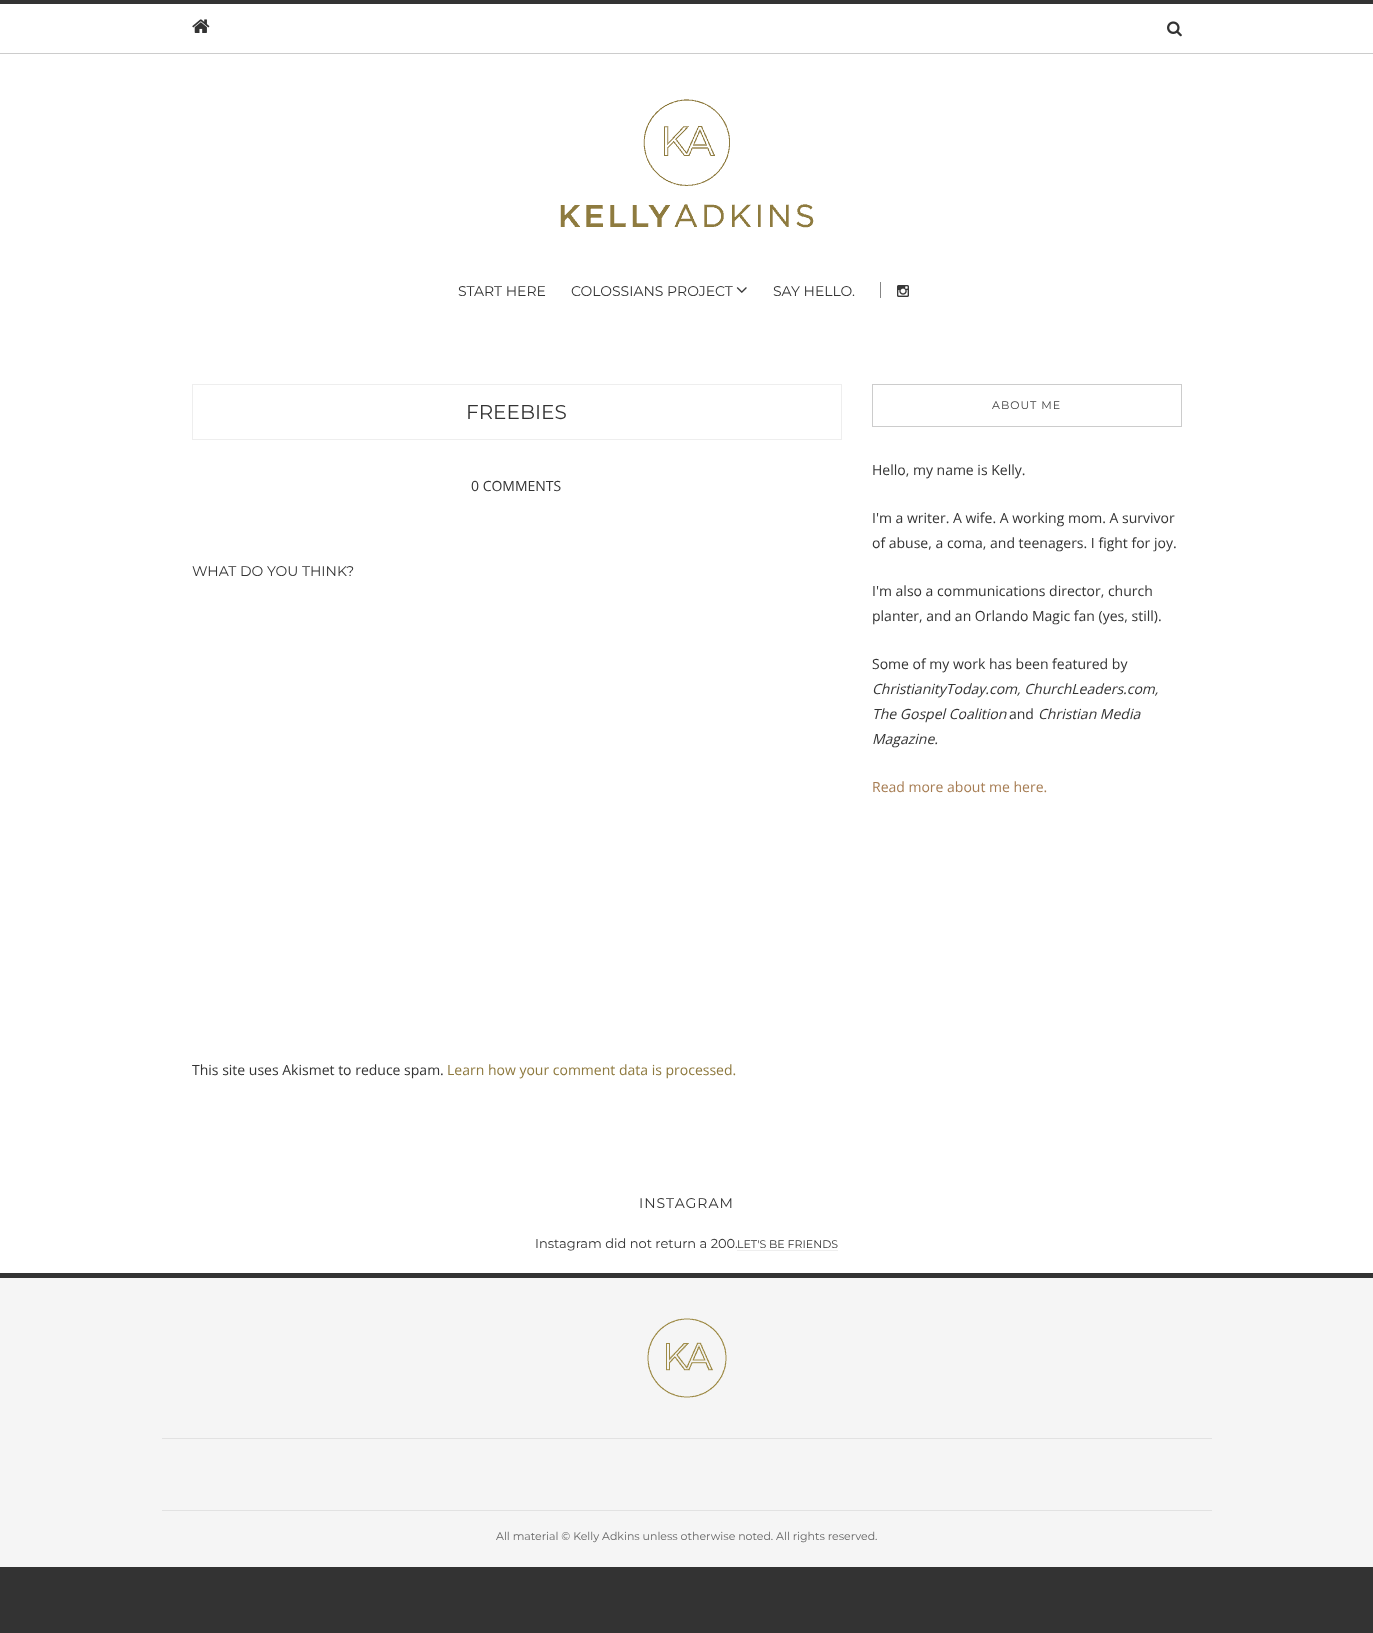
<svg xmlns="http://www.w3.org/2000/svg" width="1373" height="1633">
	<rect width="100%" height="100%" fill="#333333" />
	<rect x="0" y="4" width="1373" height="1269" fill="#FFFFFF" />
	<rect x="0" y="53" width="1373" height="1" fill="#CCCCCC" />
	<image x="192" y="19" width="18" height="14" href="assets/img1.png" />
	<image x="1167" y="21" width="15" height="16" href="assets/img2.png" />
	<image x="560" y="99" width="254" height="129" href="assets/img3.png" />
	<g font-family="Montserrat" font-size="14" fill="#333333">
		<text x="458" y="296">START HERE</text>
		<text x="571" y="296">COLOSSIANS PROJECT</text>
	</g>
	<image x="736" y="287" width="11" height="6" href="assets/img4.png" />
	<text x="773" y="296" font-family="Montserrat" font-size="14" fill="#333333">SAY HELLO.</text>
	<rect x="880" y="282" width="1" height="16" fill="#858585" />
	<image x="897" y="285" width="12" height="12" href="assets/img5.png" />
	<rect x="192.5" y="384.5" width="649" height="55" fill="none" stroke="#EEEEEE" />
	<text x="466" y="419" font-family="Montserrat" font-size="20" fill="#333333">FREEBIES</text>
	<text x="471" y="491" font-family="Open Sans" font-size="14" fill="#333333">0 COMMENTS</text>
	<text x="192" y="576" font-family="Montserrat" font-size="14" fill="#333333">WHAT DO YOU THINK?</text>
	<text x="192" y="1075" font-family="Open Sans" font-size="14" fill="#333333">This site uses Akismet to reduce spam.</text>
	<text x="447" y="1075" font-family="Open Sans" font-size="14" fill="#8E793E">Learn how your comment data is processed.</text>
	<rect x="872.5" y="384.5" width="309" height="42" fill="none" stroke="#CCCCCC" />
	<text x="992" y="409" font-family="Montserrat" font-size="11" letter-spacing="1" fill="#444444">ABOUT ME</text>
	<g font-family="Open Sans" font-size="14" fill="#333333">
		<text x="872" y="475">Hello, my name is Kelly.</text>
		<text x="872" y="523">I'm a writer. A wife. A working mom. A survivor</text>
		<text x="872" y="548">of abuse, a coma, and teenagers. I fight for joy.</text>
		<text x="872" y="596">I'm also a communications director, church</text>
		<text x="872" y="621">planter, and an Orlando Magic fan (yes, still).</text>
		<text x="872" y="669">Some of my work has been featured by</text>
	</g>
	<g font-family="Open Sans" font-size="14" font-style="italic" fill="#333333">
		<text x="872" y="694">ChristianityToday.com, ChurchLeaders.com,</text>
		<text x="872" y="719">The Gospel Coalition</text>
	</g>
	<text x="1009" y="719" font-family="Open Sans" font-size="14" fill="#333333">and</text>
	<g font-family="Open Sans" font-size="14" font-style="italic" fill="#333333">
		<text x="1038" y="719">Christian Media</text>
		<text x="872" y="744">Magazine.</text>
	</g>
	<text x="872" y="792" font-family="Open Sans" font-size="14" fill="#A67C52">Read more about me here.</text>
	<text x="639" y="1208" font-family="Montserrat" font-size="14" letter-spacing="1" fill="#333333">INSTAGRAM</text>
	<text x="535" y="1248" font-family="Montserrat" font-size="13" fill="#333333">Instagram did not return a 200.</text>
	<rect x="737" y="1250" width="101" height="1" fill="#EEEEEE" />
	<text x="737" y="1248" font-family="Montserrat" font-size="11" fill="#333333">LET'S BE FRIENDS</text>
	<rect x="0" y="1278" width="1373" height="289" fill="#F5F5F5" />
	<image x="647" y="1318" width="80" height="80" href="assets/img6.png" />
	<rect x="162" y="1438" width="1050" height="1" fill="#E2E2E2" />
	<rect x="162" y="1510" width="1050" height="1" fill="#E2E2E2" />
	<text x="496" y="1540" font-family="Montserrat" font-size="11" fill="#656565">All material © Kelly Adkins unless otherwise noted. All rights reserved.</text>
</svg>
